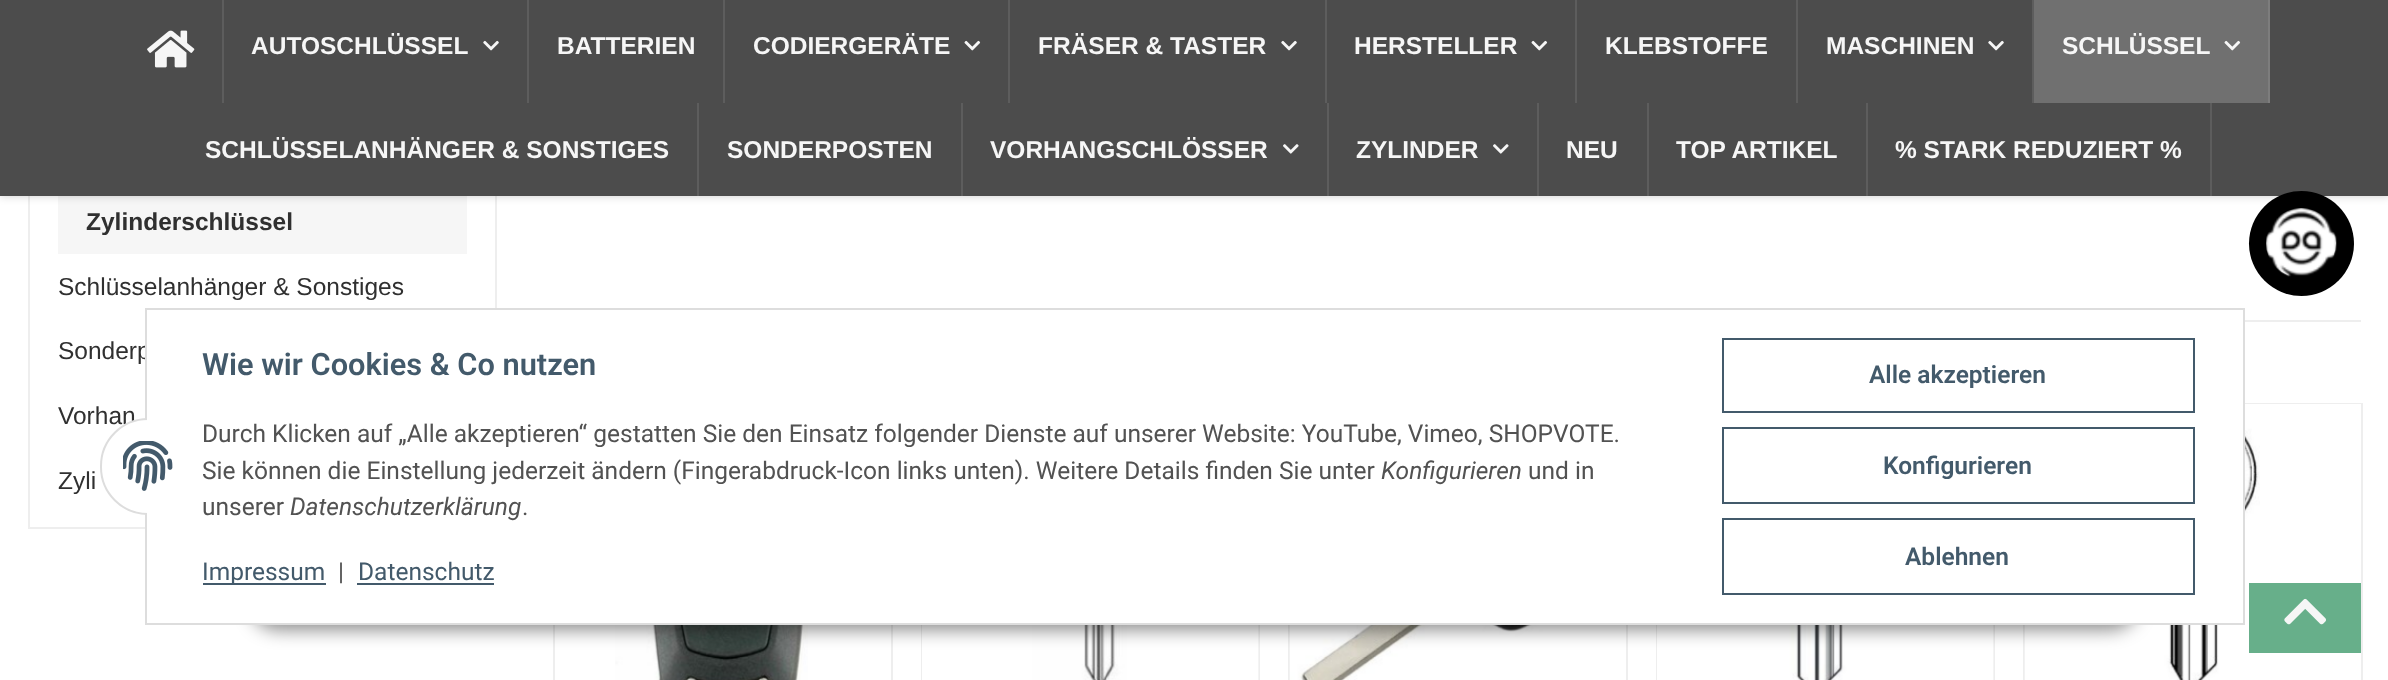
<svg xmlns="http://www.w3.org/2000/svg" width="2388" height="680">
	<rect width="100%" height="100%" fill="#FFFFFF" />
	<rect x="29" y="-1" width="467" height="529" fill="none" stroke="#EEEEEE" stroke-width="2" />
	<rect x="58" y="196" width="409" height="58" fill="#F6F6F6" />
	<rect x="0" y="-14" width="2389" height="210" fill="#000000" fill-opacity="0.2" filter="blur(4.5px)" />
	<rect x="0" y="0" width="2388" height="196" fill="#4C4C4C" />
	<rect x="222" y="0" width="2" height="103" fill="#5D5D5D" />
	<image x="147" y="30" width="48" height="38" href="assets/img1.png" />
	<rect x="527" y="0" width="2" height="103" fill="#5D5D5D" />
	<text x="251" y="54" font-family="Liberation Sans" font-size="24.5" font-weight="700" fill="#F6F6F6">AUTOSCHLÜSSEL</text>
	<image x="483" y="40" width="16" height="11" href="assets/img2.png" />
	<rect x="723" y="0" width="2" height="103" fill="#5D5D5D" />
	<text x="557" y="54" font-family="Liberation Sans" font-size="24.5" font-weight="700" fill="#F6F6F6">BATTERIEN</text>
	<rect x="1008" y="0" width="2" height="103" fill="#5D5D5D" />
	<text x="753" y="54" font-family="Liberation Sans" font-size="24.5" font-weight="700" fill="#F6F6F6">CODIERGERÄTE</text>
	<image x="964" y="40" width="17" height="11" href="assets/img3.png" />
	<rect x="1325" y="0" width="2" height="103" fill="#5D5D5D" />
	<text x="1038" y="54" font-family="Liberation Sans" font-size="24.5" font-weight="700" fill="#F6F6F6">FRÄSER &amp; TASTER</text>
	<image x="1281" y="40" width="16" height="11" href="assets/img2.png" />
	<rect x="1575" y="0" width="2" height="103" fill="#5D5D5D" />
	<text x="1354" y="54" font-family="Liberation Sans" font-size="24.5" font-weight="700" fill="#F6F6F6">HERSTELLER</text>
	<image x="1531" y="40" width="17" height="11" href="assets/img3.png" />
	<rect x="1796" y="0" width="2" height="103" fill="#5D5D5D" />
	<text x="1605" y="54" font-family="Liberation Sans" font-size="24.5" font-weight="700" fill="#F6F6F6">KLEBSTOFFE</text>
	<rect x="2032" y="0" width="2" height="103" fill="#5D5D5D" />
	<text x="1826" y="54" font-family="Liberation Sans" font-size="24.5" font-weight="700" fill="#F6F6F6">MASCHINEN</text>
	<image x="1988" y="40" width="16" height="11" href="assets/img2.png" />
	<rect x="2034" y="0" width="234" height="103" fill="#707070" />
	<rect x="2268" y="0" width="2" height="103" fill="#7D7D7D" />
	<text x="2062" y="54" font-family="Liberation Sans" font-size="24.5" font-weight="700" fill="#F6F6F6">SCHLÜSSEL</text>
	<image x="2224" y="40" width="17" height="11" href="assets/img4.png" />
	<rect x="697" y="103" width="2" height="93" fill="#5D5D5D" />
	<text x="205" y="158" font-family="Liberation Sans" font-size="24.5" font-weight="700" fill="#F6F6F6">SCHLÜSSELANHÄNGER &amp; SONSTIGES</text>
	<rect x="961" y="103" width="2" height="93" fill="#5D5D5D" />
	<text x="727" y="158" font-family="Liberation Sans" font-size="24.5" font-weight="700" fill="#F6F6F6">SONDERPOSTEN</text>
	<rect x="1327" y="103" width="2" height="93" fill="#5D5D5D" />
	<text x="990" y="158" font-family="Liberation Sans" font-size="24.5" font-weight="700" fill="#F6F6F6">VORHANGSCHLÖSSER</text>
	<image x="1283" y="144" width="16" height="10" href="assets/img5.png" />
	<rect x="1537" y="103" width="2" height="93" fill="#5D5D5D" />
	<text x="1356" y="158" font-family="Liberation Sans" font-size="24.5" font-weight="700" fill="#F6F6F6">ZYLINDER</text>
	<image x="1493" y="144" width="16" height="10" href="assets/img5.png" />
	<rect x="1647" y="103" width="2" height="93" fill="#5D5D5D" />
	<text x="1566" y="158" font-family="Liberation Sans" font-size="24.5" font-weight="700" fill="#F6F6F6">NEU</text>
	<rect x="1866" y="103" width="2" height="93" fill="#5D5D5D" />
	<text x="1676" y="158" font-family="Liberation Sans" font-size="24.5" font-weight="700" fill="#F6F6F6">TOP ARTIKEL</text>
	<rect x="2210" y="103" width="2" height="93" fill="#5D5D5D" />
	<text x="1895" y="158" font-family="Liberation Sans" font-size="24.5" font-weight="700" fill="#F6F6F6">% STARK REDUZIERT %</text>
	<text x="86" y="230" font-family="Liberation Sans" font-size="24.5" font-weight="700" fill="#303030">Zylinderschlüssel</text>
	<g font-family="Liberation Sans" font-size="24.5" fill="#303030">
		<text x="58" y="295">Schlüsselanhänger &amp; Sonstiges</text>
		<text x="58" y="359">Sonderp</text>
		<text x="58" y="424">Vorhan</text>
		<text x="58" y="489">Zyli</text>
	</g>
	<circle cx="2301.5" cy="243.5" r="52.5" fill="#000000" />
	<image x="2266" y="208" width="71" height="69" href="assets/img6.png" />
	<rect x="2245" y="320" width="116" height="2" fill="#EEEEEE" />
	<rect x="554" y="404" width="338" height="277" fill="none" stroke="#EEEEEE" stroke-width="2" />
	<image x="615" y="625" width="193" height="55" href="assets/img7.png" />
	<rect x="922" y="404" width="337" height="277" fill="none" stroke="#EEEEEE" stroke-width="2" />
	<rect x="922" y="625" width="1" height="55" fill="#FFFFFF" />
	<image x="1032" y="625" width="227" height="55" href="assets/img8.png" />
	<rect x="1289" y="404" width="338" height="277" fill="none" stroke="#EEEEEE" stroke-width="2" />
	<image x="1289" y="625" width="318" height="55" href="assets/img9.png" />
	<rect x="1657" y="404" width="337" height="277" fill="none" stroke="#EEEEEE" stroke-width="2" />
	<rect x="1657" y="625" width="1" height="55" fill="#FFFFFF" />
	<image x="1751" y="625" width="243" height="55" href="assets/img10.png" />
	<rect x="2024" y="404" width="338" height="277" fill="none" stroke="#EEEEEE" stroke-width="2" />
	<rect x="2245" y="404" width="116" height="1" fill="#FFFFFF" />
	<image x="2024" y="404" width="236" height="276" href="assets/img11.png" />
	<rect x="250" y="574" width="1889" height="56" rx="28" fill="#000000" fill-opacity="0.45" filter="blur(9px)" />
	<rect x="146" y="309" width="2098" height="315" fill="#FFFFFF" stroke="#DDDDDD" stroke-width="2" />
	<rect x="101" y="419" width="94" height="95" rx="47" fill="#FFFFFF" stroke="#DDDDDD" stroke-width="2" />
	<rect x="147" y="418" width="49" height="97" fill="#FFFFFF" />
	<image x="123" y="441" width="50" height="50" href="assets/img12.png" />
	<text x="202" y="375" font-family="Roboto" font-size="30.75" font-weight="600" fill="#435A6B">Wie wir Cookies &amp; Co nutzen</text>
	<g font-family="Roboto" font-size="24.5" fill="#525252">
		<text x="202" y="442">Durch Klicken auf „Alle akzeptieren“ gestatten Sie den Einsatz folgender Dienste auf unserer Website: YouTube, Vimeo, SHOPVOTE.</text>
		<text x="202" y="479">Sie können die Einstellung jederzeit ändern (Fingerabdruck-Icon links unten). Weitere Details finden Sie unter</text>
	</g>
	<text x="1381" y="479" font-family="Roboto" font-size="24.5" font-style="italic" fill="#525252">Konfigurieren</text>
	<g font-family="Roboto" font-size="24.5" fill="#525252">
		<text x="1528" y="479">und in</text>
		<text x="202" y="515">unserer</text>
	</g>
	<text x="290" y="515" font-family="Roboto" font-size="24.5" font-style="italic" fill="#525252">Datenschutzerklärung</text>
	<text x="522" y="515" font-family="Roboto" font-size="24.5" fill="#525252">.</text>
	<rect x="203" y="583" width="123" height="2" fill="#435A6B" />
	<text x="202" y="580" font-family="Roboto" font-size="24.5" fill="#435A6B">Impressum</text>
	<text x="338" y="580" font-family="Roboto" font-size="24.5" fill="#525252">|</text>
	<text x="358" y="580" font-family="Roboto" font-size="24.5" fill="#435A6B">Datenschutz</text>
	<rect x="357" y="583" width="137" height="2" fill="#435A6B" />
	<rect x="1723" y="339" width="471" height="73" fill="none" stroke="#435A6B" stroke-width="2" />
	<text x="1869" y="383" font-family="Roboto" font-size="24.5" font-weight="600" fill="#435A6B">Alle akzeptieren</text>
	<rect x="1723" y="428" width="471" height="75" fill="none" stroke="#435A6B" stroke-width="2" />
	<text x="1883" y="474" font-family="Roboto" font-size="24.5" font-weight="600" fill="#435A6B">Konfigurieren</text>
	<rect x="1723" y="519" width="471" height="75" fill="none" stroke="#435A6B" stroke-width="2" />
	<text x="1905" y="565" font-family="Roboto" font-size="24.5" font-weight="600" fill="#435A6B">Ablehnen</text>
	<rect x="2249" y="583" width="112" height="70" fill="#67AF8A" />
	<image x="2284" y="598" width="42" height="27" href="assets/img13.png" />
</svg>
